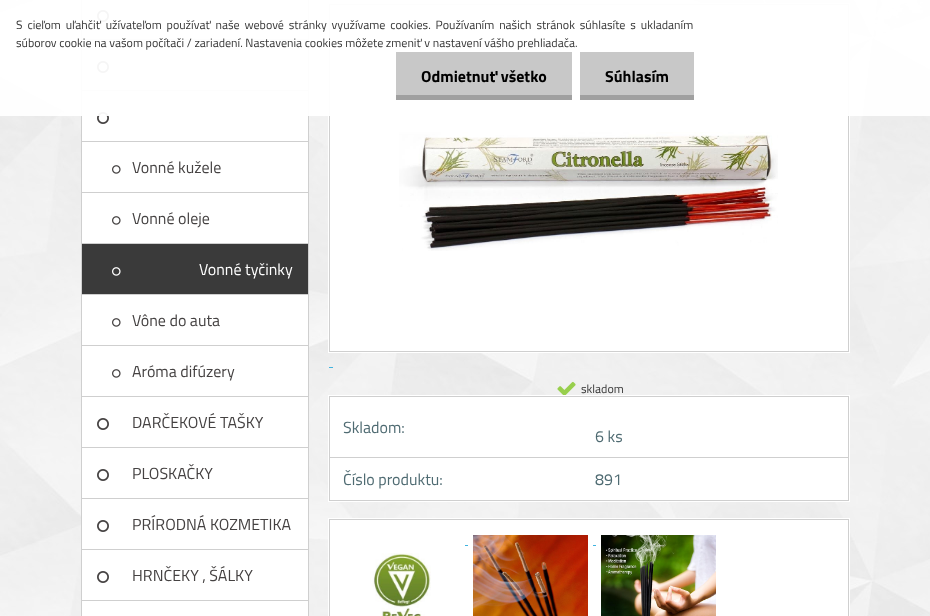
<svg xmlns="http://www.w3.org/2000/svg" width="930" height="616">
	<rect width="100%" height="100%" fill="#FFFFFF" />
	<image x="0" y="0" width="930" height="616" href="assets/img1.png" />
	<rect x="82" y="0" width="226" height="39" fill="#FFFFFF" />
	<rect x="308" y="0" width="1" height="616" fill="#CFCFCF" />
	<rect x="81" y="39" width="228" height="1" fill="#CFCFCF" />
	<rect x="81" y="0" width="1" height="40" fill="#CFCFCF" />
	<image x="97" y="10" width="12" height="12" href="assets/img2.png" />
	<rect x="82" y="40" width="226" height="50" fill="#FFFFFF" />
	<rect x="81" y="90" width="228" height="1" fill="#CFCFCF" />
	<rect x="81" y="40" width="1" height="51" fill="#CFCFCF" />
	<image x="97" y="61" width="12" height="12" href="assets/img2.png" />
	<rect x="82" y="91" width="226" height="50" fill="#FFFFFF" />
	<rect x="81" y="141" width="228" height="1" fill="#CFCFCF" />
	<rect x="81" y="91" width="1" height="51" fill="#CFCFCF" />
	<image x="97" y="112" width="12" height="12" href="assets/img2.png" />
	<rect x="328.5" y="3.5" width="521" height="349" fill="none" stroke="#FFFFFF" />
	<rect x="329.5" y="4.5" width="519" height="347" fill="#FFFFFF" stroke="#CFCFCF" />
	<rect x="0" y="0" width="930" height="116" fill="#FFFFFF" fill-opacity="0.95" />
	<g font-family="Titillium Web" font-size="12" fill="#383838">
		<text x="16" y="29" word-spacing="2.25">S cieľom uľahčiť užívateľom používať naše webové stránky využívame cookies. Používaním našich stránok súhlasíte s ukladaním</text>
		<text x="16" y="47">súborov cookie na vašom počítači / zariadení. Nastavenia cookies môžete zmeniť v nastavení vášho prehliadača.</text>
	</g>
	<rect x="396" y="52" width="176" height="43" fill="#C8C8C8" />
	<rect x="396" y="95" width="176" height="5" fill="#A0A0A0" />
	<text x="421" y="82" font-family="Titillium Web" font-size="16" font-weight="700" fill="#000000">Odmietnuť všetko</text>
	<rect x="580" y="52" width="114" height="43" fill="#C8C8C8" />
	<rect x="580" y="95" width="114" height="5" fill="#A0A0A0" />
	<text x="605" y="82" font-family="Titillium Web" font-size="16" font-weight="700" fill="#000000">Súhlasím</text>
	<rect x="82" y="142" width="226" height="50" fill="#FFFFFF" />
	<rect x="81" y="192" width="228" height="1" fill="#CFCFCF" />
	<rect x="81" y="142" width="1" height="51" fill="#CFCFCF" />
	<image x="112" y="165" width="9" height="9" href="assets/img3.png" />
	<text x="132" y="173" font-family="Titillium Web" font-size="16" fill="#454242">Vonné kužele</text>
	<rect x="82" y="193" width="226" height="50" fill="#FFFFFF" />
	<rect x="81" y="243" width="228" height="1" fill="#CFCFCF" />
	<rect x="81" y="193" width="1" height="51" fill="#CFCFCF" />
	<image x="112" y="216" width="9" height="9" href="assets/img3.png" />
	<text x="132" y="224" font-family="Titillium Web" font-size="16" fill="#454242">Vonné oleje</text>
	<rect x="82" y="244" width="226" height="50" fill="#3A3A3A" />
	<rect x="81" y="294" width="228" height="1" fill="#CFCFCF" />
	<rect x="81" y="244" width="1" height="51" fill="#CFCFCF" />
	<image x="112" y="267" width="9" height="9" href="assets/img4.png" />
	<text x="199" y="275" font-family="Titillium Web" font-size="16" fill="#FFFFFF">Vonné tyčinky</text>
	<rect x="82" y="295" width="226" height="50" fill="#FFFFFF" />
	<rect x="81" y="345" width="228" height="1" fill="#CFCFCF" />
	<rect x="81" y="295" width="1" height="51" fill="#CFCFCF" />
	<image x="112" y="318" width="9" height="9" href="assets/img3.png" />
	<text x="132" y="326" font-family="Titillium Web" font-size="16" fill="#454242">Vône do auta</text>
	<rect x="82" y="346" width="226" height="50" fill="#FFFFFF" />
	<rect x="81" y="396" width="228" height="1" fill="#CFCFCF" />
	<rect x="81" y="346" width="1" height="51" fill="#CFCFCF" />
	<image x="112" y="369" width="9" height="9" href="assets/img3.png" />
	<text x="132" y="377" font-family="Titillium Web" font-size="16" fill="#454242">Aróma difúzery</text>
	<rect x="82" y="397" width="226" height="50" fill="#FFFFFF" />
	<rect x="81" y="447" width="228" height="1" fill="#CFCFCF" />
	<rect x="81" y="397" width="1" height="51" fill="#CFCFCF" />
	<image x="97" y="418" width="12" height="12" href="assets/img2.png" />
	<text x="132" y="428" font-family="Titillium Web" font-size="16" fill="#454242">DARČEKOVÉ TAŠKY</text>
	<rect x="82" y="448" width="226" height="50" fill="#FFFFFF" />
	<rect x="81" y="498" width="228" height="1" fill="#CFCFCF" />
	<rect x="81" y="448" width="1" height="51" fill="#CFCFCF" />
	<image x="97" y="469" width="12" height="12" href="assets/img2.png" />
	<text x="132" y="479" font-family="Titillium Web" font-size="16" fill="#454242">PLOSKAČKY</text>
	<rect x="82" y="499" width="226" height="50" fill="#FFFFFF" />
	<rect x="81" y="549" width="228" height="1" fill="#CFCFCF" />
	<rect x="81" y="499" width="1" height="51" fill="#CFCFCF" />
	<image x="97" y="520" width="12" height="12" href="assets/img2.png" />
	<text x="132" y="530" font-family="Titillium Web" font-size="16" fill="#454242">PRÍRODNÁ KOZMETIKA</text>
	<rect x="82" y="550" width="226" height="50" fill="#FFFFFF" />
	<rect x="81" y="600" width="228" height="1" fill="#CFCFCF" />
	<rect x="81" y="550" width="1" height="66" fill="#CFCFCF" />
	<image x="97" y="571" width="12" height="12" href="assets/img2.png" />
	<text x="132" y="581" font-family="Titillium Web" font-size="16" fill="#454242">HRNČEKY , ŠÁLKY</text>
	<rect x="82" y="601" width="226" height="15" fill="#FFFFFF" />
	<image x="399" y="132" width="379" height="119" href="assets/img5.png" />
	<rect x="329" y="367" width="4" height="1" fill="#40B3DF" />
	<image x="557" y="381" width="19" height="14" href="assets/img6.png" />
	<text x="581" y="393" font-family="Titillium Web" font-size="12" fill="#383838">skladom</text>
	<rect x="328.5" y="395.5" width="521" height="106" fill="none" stroke="#FFFFFF" />
	<rect x="330" y="397" width="518" height="103" fill="#FFFFFF" />
	<rect x="329" y="396" width="520" height="1" fill="#CFCFCF" />
	<rect x="848" y="396" width="1" height="105" fill="#CFCFCF" />
	<rect x="329" y="500" width="520" height="1" fill="#CFCFCF" />
	<rect x="329" y="396" width="1" height="105" fill="#CFCFCF" />
	<g font-family="Titillium Web" font-size="16" fill="#4F6B72">
		<text x="343" y="433">Skladom:</text>
		<text x="595" y="442">6 ks</text>
	</g>
	<rect x="329" y="457" width="520" height="1" fill="#CFCFCF" />
	<g font-family="Titillium Web" font-size="16" fill="#4F6B72">
		<text x="343" y="485">Číslo produktu:</text>
		<text x="595" y="485">891</text>
	</g>
	<rect x="328.5" y="518.5" width="521" height="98" fill="none" stroke="#FFFFFF" />
	<rect x="329.5" y="519.5" width="519" height="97" fill="#FFFFFF" stroke="#CFCFCF" />
	<rect x="465" y="545" width="3" height="1" fill="#40B3DF" />
	<image x="370" y="553" width="61" height="63" href="assets/img7.png" />
	<image x="473" y="535" width="115" height="81" href="assets/img8.png" />
	<rect x="593" y="545" width="3" height="1" fill="#40B3DF" />
	<image x="601" y="535" width="115" height="81" href="assets/img9.png" />
</svg>
